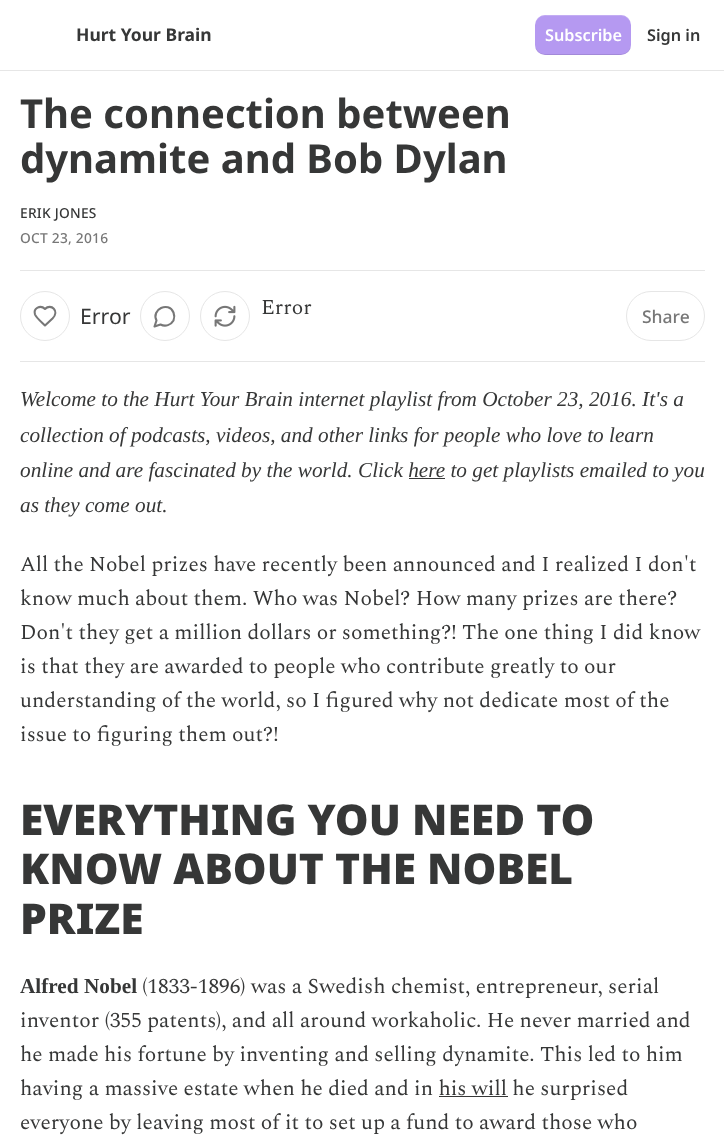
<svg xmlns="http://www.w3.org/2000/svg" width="724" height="1135">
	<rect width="100%" height="100%" fill="#FFFFFF" />
	<rect x="0" y="70" width="724" height="1" fill="#E6E6E6" />
	<text x="76" y="41" font-family="Noto Sans" font-size="17.5" font-weight="700" fill="#363737">Hurt Your Brain</text>
	<rect x="535" y="15" width="96" height="40" rx="10" fill="#B599F1" />
	<path d="M535 44C535 57 548 55 558 55H608C618 55 631 57 631 44C631 49 627 54 621 54H545C539 54 535 49 535 44Z" fill="#000000" fill-opacity="0.1" />
	<path d="M545 16H621C627 16 631 21 631 26C631 13 618 15 608 15H558C548 15 535 13 535 26C535 21 539 16 545 16Z" fill="#FFFFFF" fill-opacity="0.2" />
	<text x="545" y="41" font-family="Noto Sans" font-size="16.25" font-weight="600" fill="#FFFFFF">Subscribe</text>
	<text x="647" y="41" font-family="Noto Sans" font-size="16.25" font-weight="600" fill="#363737">Sign in</text>
	<g font-family="Noto Sans" font-size="40" font-weight="700" fill="#363737">
		<text x="20" y="128">The connection between</text>
		<text x="20" y="173">dynamite and Bob Dylan</text>
	</g>
	<text x="20" y="218" font-family="Noto Sans" font-size="13.75" font-weight="500" letter-spacing="0.25" fill="#363737">ERIK JONES</text>
	<text x="20" y="243" font-family="Noto Sans" font-size="13.75" font-weight="500" letter-spacing="0.25" fill="#777777">OCT 23, 2016</text>
	<rect x="20" y="270" width="685" height="1" fill="#E6E6E6" />
	<rect x="20" y="361" width="685" height="1" fill="#E6E6E6" />
	<circle cx="45" cy="316" r="24.5" fill="none" stroke="#E6E6E6" />
	<path d="M52.5 318.5C60 311 51 303 45 309C40.5 304.5 33 308 35 314.5C36 317.5 42.5 323 45 325.5Z" fill="none" stroke="#777777" stroke-width="2.1" stroke-linecap="round" stroke-linejoin="round" />
	<text x="80" y="324" font-family="Noto Sans" font-size="21.25" fill="#363737">Error</text>
	<circle cx="165" cy="316" r="24.5" fill="none" stroke="#E6E6E6" />
	<path d="M160.5 324.5C165.5 327 171 325 173.5 320.5C174.5 318 174.5 315 173.5 312.5C168.5 301 151 309.5 156.5 320.5L154.5 326.5Z" fill="none" stroke="#777777" stroke-width="2.1" stroke-linecap="round" stroke-linejoin="round" />
	<circle cx="225" cy="316" r="24.5" fill="none" stroke="#E6E6E6" />
	<image x="214" y="305" width="22" height="22" href="assets/img1.png" />
	<text x="261" y="314" font-family="Spectral" font-size="21.25" fill="#363737">Error</text>
	<rect x="626.5" y="291.5" width="78" height="49" rx="24.5" fill="none" stroke="#E6E6E6" />
	<text x="642" y="323" font-family="Noto Sans" font-size="17.5" font-weight="500" fill="#777777">Share</text>
	<g font-family="Liberation Serif" font-size="21.25" font-style="italic" fill="#363737">
		<text x="20" y="406">Welcome to the Hurt Your Brain internet playlist from October 23, 2016. It's a</text>
		<text x="20" y="442">collection of podcasts, videos, and other links for people who love to learn</text>
		<text x="20" y="477">online and are fascinated by the world. Click here to get playlists emailed to you</text>
	</g>
	<rect x="409" y="478" width="36" height="1" fill="#363737" />
	<text x="20" y="512" font-family="Liberation Serif" font-size="21.25" font-style="italic" fill="#363737">as they come out.</text>
	<g font-family="Spectral" font-size="21.25" fill="#363737">
		<text x="20" y="571">All the Nobel prizes have recently been announced and I realized I don't</text>
		<text x="20" y="605">know much about them. Who was Nobel? How many prizes are there?</text>
		<text x="20" y="639">Don't they get a million dollars or something?! The one thing I did know</text>
		<text x="20" y="673">is that they are awarded to people who contribute greatly to our</text>
		<text x="20" y="707">understanding of the world, so I figured why not dedicate most of the</text>
		<text x="20" y="741">issue to figuring them out?!</text>
	</g>
	<g font-family="Noto Sans" font-size="42.5" font-weight="900" fill="#363737">
		<text x="20" y="835">EVERYTHING YOU NEED TO</text>
		<text x="20" y="884">KNOW ABOUT THE NOBEL</text>
		<text x="20" y="934">PRIZE</text>
	</g>
	<text x="20" y="993" font-family="Liberation Serif" font-size="21.25" font-weight="700" fill="#363737">Alfred Nobel</text>
	<g font-family="Spectral" font-size="21.25" fill="#363737">
		<text x="142" y="993">(1833-1896) was a Swedish chemist, entrepreneur, serial</text>
		<text x="20" y="1027">inventor (355 patents), and all around workaholic. He never married and</text>
		<text x="20" y="1061">he made his fortune by inventing and selling dynamite. This led to him</text>
		<text x="20" y="1095">having a massive estate when he died and in his will he surprised</text>
	</g>
	<rect x="439" y="1096" width="69" height="1" fill="#363737" />
	<text x="20" y="1129" font-family="Spectral" font-size="21.25" fill="#363737">everyone by leaving most of it to set up a fund to award those who</text>
</svg>
